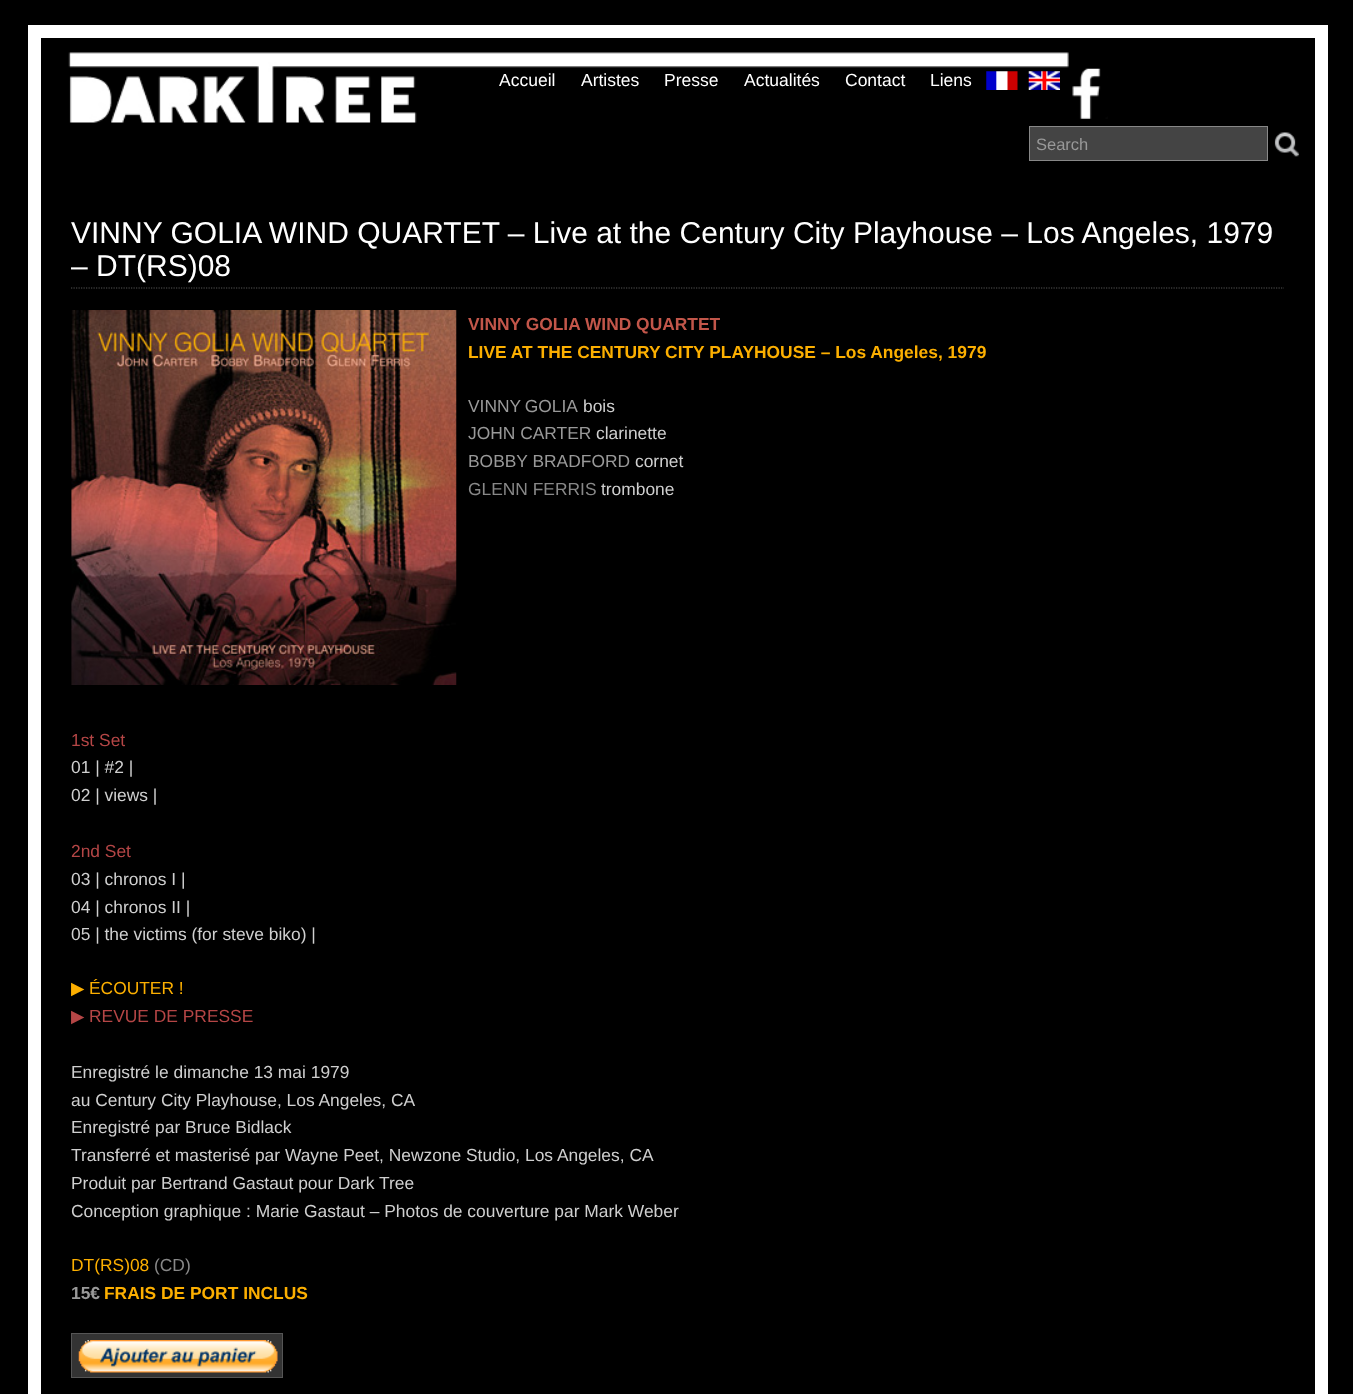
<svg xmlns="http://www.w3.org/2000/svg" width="1353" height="1394">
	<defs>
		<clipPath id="clip1"><rect x="71" y="291" width="1213" height="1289" /></clipPath>
	</defs>
	<rect width="100%" height="100%" fill="#000000" />
	<rect x="34.5" y="31.5" width="1287" height="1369" fill="none" stroke="#FFFFFF" stroke-width="13" />
	<image x="68" y="52" width="1001" height="71" href="assets/img1.png" />
	<g font-family="Liberation Sans" font-size="17.5" fill="#FFFFFF">
		<text x="499" y="86">Accueil</text>
		<text x="581" y="86">Artistes</text>
		<text x="664" y="86">Presse</text>
		<text x="744" y="86">Actualités</text>
		<text x="845" y="86">Contact</text>
		<text x="930" y="86">Liens</text>
	</g>
	<image x="986" y="71" width="32" height="19" href="assets/img2.png" />
	<image x="1028" y="71" width="32" height="19" href="assets/img3.png" />
	<image x="1072" y="68" width="36" height="51" href="assets/img4.png" />
	<rect x="1029.5" y="126.5" width="238" height="34" fill="#444444" stroke="#888888" />
	<text x="1036" y="150" font-family="Liberation Sans" font-size="16.5" fill="#999999">Search</text>
	<image x="1274" y="132" width="26" height="25" href="assets/img5.png" />
	<path d="M71 288H1284" fill="none" stroke="#555555" stroke-width="1.2" stroke-dasharray="1.25 1.25" />
	<g font-family="Liberation Sans" font-size="30" fill="#FFFFFF">
		<text x="71" y="243">VINNY GOLIA WIND QUARTET – Live at the Century City Playhouse – Los Angeles, 1979</text>
		<text x="71" y="276">– DT(RS)08</text>
	</g>
	<image x="71" y="310" width="386" height="375" href="assets/img6.png" />
	<text x="468" y="330" font-family="Liberation Sans" font-size="17.4" font-weight="700" fill="#C2564A">VINNY GOLIA WIND QUARTET</text>
	<text x="468" y="358" font-family="Liberation Sans" font-size="17.4" font-weight="700" fill="#FCAF00">LIVE AT THE CENTURY CITY PLAYHOUSE – Los Angeles, 1979</text>
	<text x="468" y="412" word-spacing="-1" font-family="Liberation Sans" font-size="17.4" fill="#999999">VINNY GOLIA</text>
	<text x="583" y="412" font-family="Liberation Sans" font-size="17.4" fill="#CFCFCF">bois</text>
	<text x="468" y="439" font-family="Liberation Sans" font-size="17.4" fill="#999999">JOHN CARTER</text>
	<text x="596" y="439" font-family="Liberation Sans" font-size="17.4" fill="#CFCFCF">clarinette</text>
	<text x="468" y="467" font-family="Liberation Sans" font-size="17.4" fill="#999999">BOBBY BRADFORD</text>
	<text x="635" y="467" font-family="Liberation Sans" font-size="17.4" fill="#CFCFCF">cornet</text>
	<text x="468" y="495" font-family="Liberation Sans" font-size="17.4" fill="#888888">GLENN FERRIS</text>
	<text x="601" y="495" font-family="Liberation Sans" font-size="17.4" fill="#CFCFCF">trombone</text>
	<text x="71" y="746" font-family="Liberation Sans" font-size="17.4" fill="#B54646">1st Set</text>
	<g font-family="Liberation Sans" font-size="17.4" fill="#CFCFCF">
		<text x="71" y="773">01 | #2 |</text>
		<text x="71" y="801">02 | views |</text>
	</g>
	<text x="71" y="857" font-family="Liberation Sans" font-size="17.4" fill="#B54646">2nd Set</text>
	<g font-family="Liberation Sans" font-size="17.4" fill="#CFCFCF">
		<text x="71" y="885">03 | chronos I |</text>
		<text x="71" y="913">04 | chronos II |</text>
		<text x="71" y="940">05 | the victims (for steve biko) |</text>
	</g>
	<g clip-path="url(#clip1)">
		<text x="71" y="994" font-family="DejaVu Sans" font-size="17.4" fill="#FCAF00">▶</text>
	</g>
	<text x="89" y="994" font-family="Liberation Sans" font-size="17.4" fill="#FCAF00">ÉCOUTER !</text>
	<g clip-path="url(#clip1)">
		<text x="71" y="1022" font-family="DejaVu Sans" font-size="17.4" fill="#B54646">▶</text>
	</g>
	<text x="89" y="1022" font-family="Liberation Sans" font-size="17.4" fill="#B54646">REVUE DE PRESSE</text>
	<g font-family="Liberation Sans" font-size="17.4" fill="#CFCFCF">
		<text x="71" y="1078">Enregistré le dimanche 13 mai 1979</text>
		<text x="71" y="1106">au Century City Playhouse, Los Angeles, CA</text>
		<text x="71" y="1133">Enregistré par Bruce Bidlack</text>
		<text x="71" y="1161">Transferré et masterisé par Wayne Peet, Newzone Studio, Los Angeles, CA</text>
		<text x="71" y="1189">Produit par Bertrand Gastaut pour Dark Tree</text>
		<text x="71" y="1217">Conception graphique : Marie Gastaut – Photos de couverture par Mark Weber</text>
	</g>
	<text x="71" y="1271" font-family="Liberation Sans" font-size="17.4" fill="#FCAF00">DT(RS)08</text>
	<text x="154" y="1271" font-family="Liberation Sans" font-size="17.4" fill="#888888">(CD)</text>
	<text x="71" y="1299" font-family="Liberation Sans" font-size="17.4" font-weight="700" fill="#999999">15€</text>
	<text x="104" y="1299" font-family="Liberation Sans" font-size="17.4" font-weight="700" fill="#FCAF00">FRAIS DE PORT INCLUS</text>
	<rect x="71.5" y="1333.5" width="211" height="44" fill="#333333" stroke="#555555" />
	<image x="78" y="1340" width="200" height="33" href="assets/img7.png" />
</svg>
